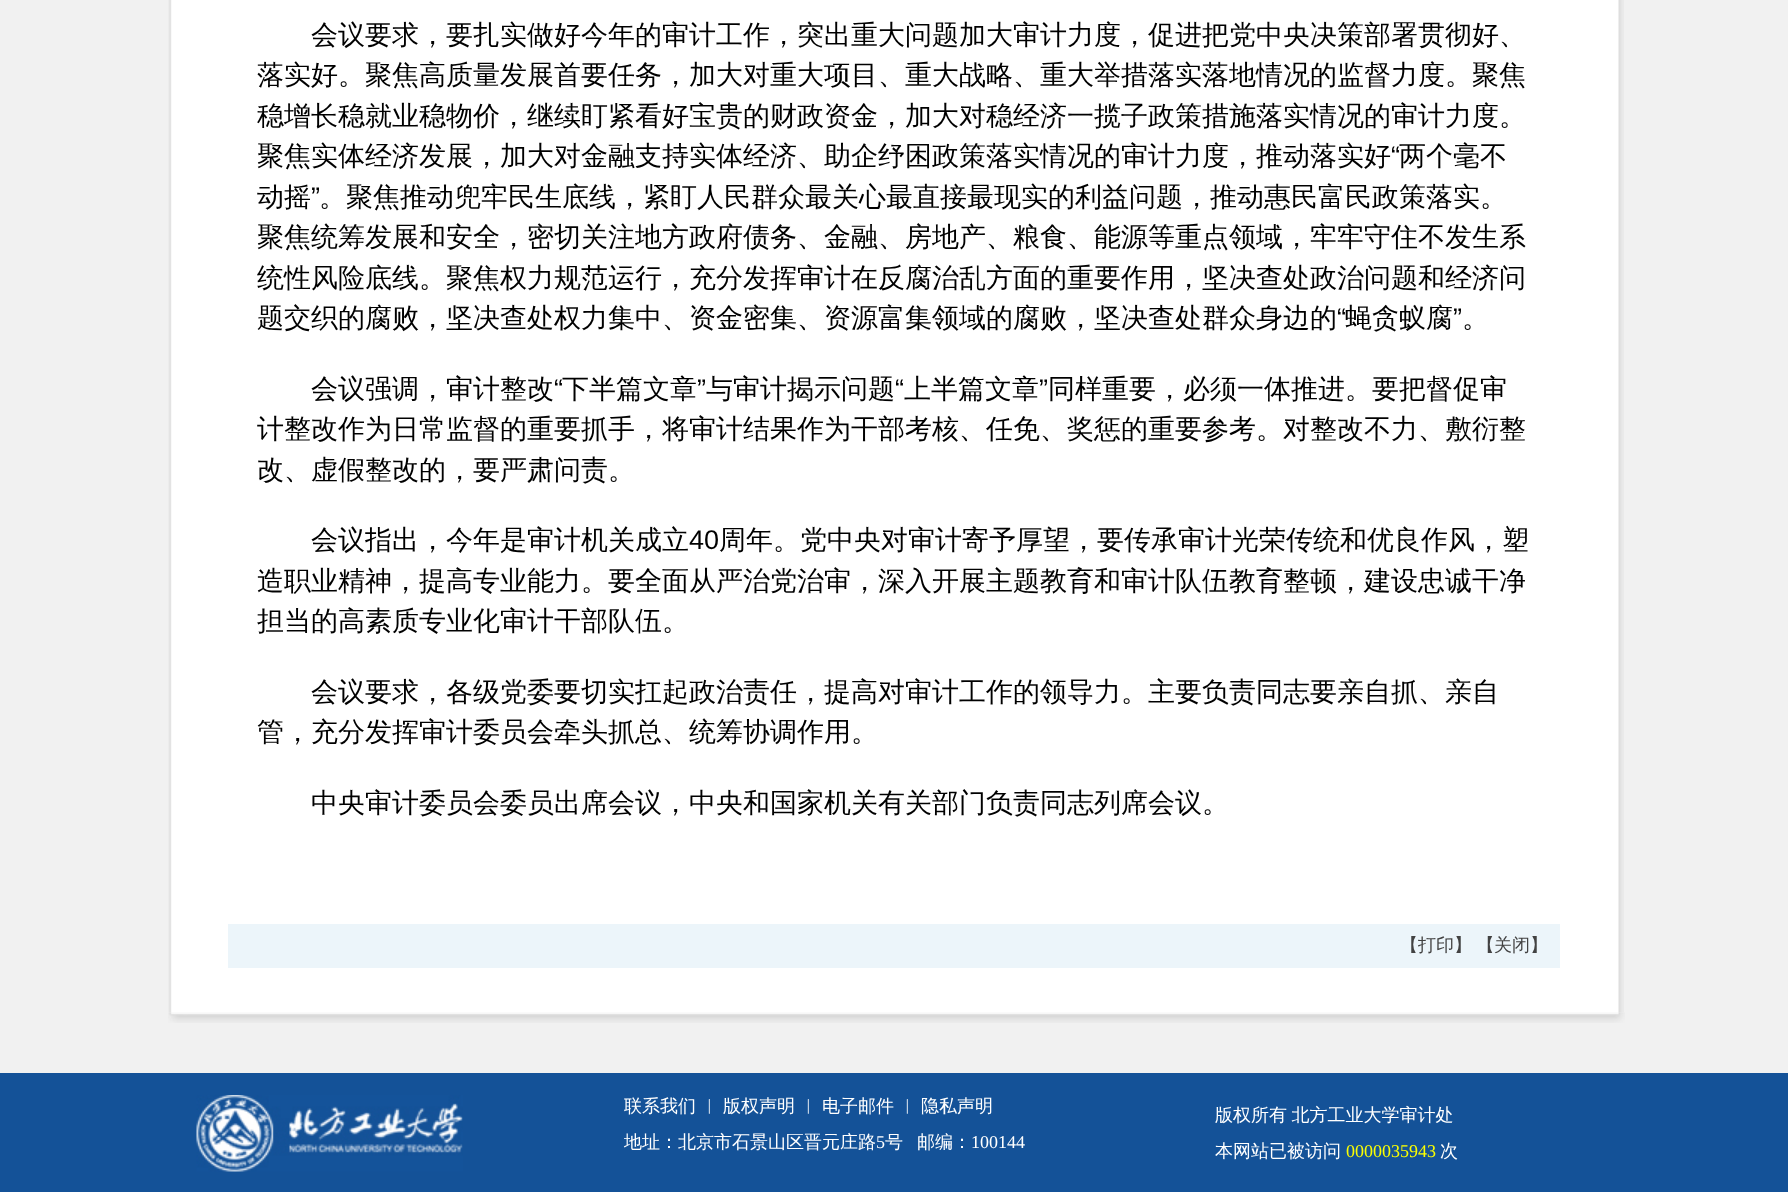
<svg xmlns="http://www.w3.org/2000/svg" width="1788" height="1192">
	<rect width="100%" height="100%" fill="#F1F1F1" />
	<image x="168" y="0" width="1456" height="1013" href="assets/img1.png" />
	<g font-family="WenQuanYi Zen Hei" font-size="27" font-weight="500" fill="#000000">
		<text x="311" y="44">会议要求，要扎实做好今年的审计工作，突出重大问题加大审计力度，促进把党中央决策部署贯彻好、</text>
		<text x="257" y="84">落实好。聚焦高质量发展首要任务，加大对重大项目、重大战略、重大举措落实落地情况的监督力度。聚焦</text>
		<text x="257" y="125">稳增长稳就业稳物价，继续盯紧看好宝贵的财政资金，加大对稳经济一揽子政策措施落实情况的审计力度。</text>
		<text x="257" y="165">聚焦实体经济发展，加大对金融支持实体经济、助企纾困政策落实情况的审计力度，推动落实好</text>
	</g>
	<text x="1391" y="165" font-family="Liberation Sans" font-size="27" fill="#000000">“</text>
	<g font-family="WenQuanYi Zen Hei" font-size="27" font-weight="500" fill="#000000">
		<text x="1399" y="165">两个毫不</text>
		<text x="257" y="206">动摇</text>
	</g>
	<text x="311" y="206" font-family="Liberation Sans" font-size="27" fill="#000000">”</text>
	<g font-family="WenQuanYi Zen Hei" font-size="27" font-weight="500" fill="#000000">
		<text x="319" y="206">。聚焦推动兜牢民生底线，紧盯人民群众最关心最直接最现实的利益问题，推动惠民富民政策落实。</text>
		<text x="257" y="246">聚焦统筹发展和安全，密切关注地方政府债务、金融、房地产、粮食、能源等重点领域，牢牢守住不发生系</text>
		<text x="257" y="287">统性风险底线。聚焦权力规范运行，充分发挥审计在反腐治乱方面的重要作用，坚决查处政治问题和经济问</text>
		<text x="257" y="327">题交织的腐败，坚决查处权力集中、资金密集、资源富集领域的腐败，坚决查处群众身边的</text>
	</g>
	<text x="1337" y="327" font-family="Liberation Sans" font-size="27" fill="#000000">“</text>
	<text x="1345" y="327" font-family="WenQuanYi Zen Hei" font-size="27" font-weight="500" fill="#000000">蝇贪蚁腐</text>
	<text x="1453" y="327" font-family="Liberation Sans" font-size="27" fill="#000000">”</text>
	<g font-family="WenQuanYi Zen Hei" font-size="27" font-weight="500" fill="#000000">
		<text x="1462" y="327">。</text>
		<text x="311" y="398">会议强调，审计整改</text>
	</g>
	<text x="554" y="398" font-family="Liberation Sans" font-size="27" fill="#000000">“</text>
	<text x="562" y="398" font-family="WenQuanYi Zen Hei" font-size="27" font-weight="500" fill="#000000">下半篇文章</text>
	<text x="697" y="398" font-family="Liberation Sans" font-size="27" fill="#000000">”</text>
	<text x="706" y="398" font-family="WenQuanYi Zen Hei" font-size="27" font-weight="500" fill="#000000">与审计揭示问题</text>
	<text x="895" y="398" font-family="Liberation Sans" font-size="27" fill="#000000">“</text>
	<text x="904" y="398" font-family="WenQuanYi Zen Hei" font-size="27" font-weight="500" fill="#000000">上半篇文章</text>
	<text x="1039" y="398" font-family="Liberation Sans" font-size="27" fill="#000000">”</text>
	<g font-family="WenQuanYi Zen Hei" font-size="27" font-weight="500" fill="#000000">
		<text x="1048" y="398">同样重要，必须一体推进。要把督促审</text>
		<text x="257" y="438">计整改作为日常监督的重要抓手，将审计结果作为干部考核、任免、奖惩的重要参考。对整改不力、敷衍整</text>
		<text x="257" y="479">改、虚假整改的，要严肃问责。</text>
		<text x="311" y="549">会议指出，今年是审计机关成立</text>
	</g>
	<text x="689" y="549" font-family="Liberation Sans" font-size="27" fill="#000000">40</text>
	<g font-family="WenQuanYi Zen Hei" font-size="27" font-weight="500" fill="#000000">
		<text x="719" y="549">周年。党中央对审计寄予厚望，要传承审计光荣传统和优良作风，塑</text>
		<text x="257" y="590">造职业精神，提高专业能力。要全面从严治党治审，深入开展主题教育和审计队伍教育整顿，建设忠诚干净</text>
		<text x="257" y="630">担当的高素质专业化审计干部队伍。</text>
		<text x="311" y="701">会议要求，各级党委要切实扛起政治责任，提高对审计工作的领导力。主要负责同志要亲自抓、亲自</text>
		<text x="257" y="741">管，充分发挥审计委员会牵头抓总、统筹协调作用。</text>
		<text x="311" y="812">中央审计委员会委员出席会议，中央和国家机关有关部门负责同志列席会议。</text>
	</g>
	<rect x="228" y="924" width="1332" height="44" fill="#ECF5FA" />
	<g font-family="WenQuanYi Zen Hei" font-size="18" font-weight="500" fill="#424242">
		<text x="1400" y="951">【打印</text>
		<text x="1454" y="951" word-spacing="-1">】 【</text>
		<text x="1494" y="951">关闭】</text>
	</g>
	<image x="168" y="1012" width="1457" height="11" href="assets/img2.png" />
	<rect x="0" y="1073" width="1788" height="119" fill="#145298" />
	<image x="196" y="1095" width="267" height="77" href="assets/img3.png" />
	<g font-family="WenQuanYi Zen Hei" font-size="18" font-weight="500" fill="#FFFFFF">
		<text x="624" y="1112">联系我们</text>
		<text x="701" y="1112">︱</text>
		<text x="723" y="1112">版权声明</text>
		<text x="800" y="1112">︱</text>
		<text x="822" y="1112">电子邮件</text>
		<text x="899" y="1112">︱</text>
		<text x="921" y="1112">隐私声明</text>
		<text x="624" y="1148">地址：北京市石景山区晋元庄路</text>
	</g>
	<text x="876" y="1148" font-family="Liberation Serif" font-size="18" fill="#FFFFFF">5</text>
	<g font-family="WenQuanYi Zen Hei" font-size="18" font-weight="500" fill="#FFFFFF">
		<text x="885" y="1148">号</text>
		<text x="917" y="1148">邮编：</text>
	</g>
	<text x="971" y="1148" font-family="Liberation Serif" font-size="18" fill="#FFFFFF">100144</text>
	<g font-family="WenQuanYi Zen Hei" font-size="18" font-weight="500" fill="#FFFFFF">
		<text x="1215" y="1121" word-spacing="-1">版权所有 北方工业大学审计处</text>
		<text x="1215" y="1157">本网站已被访问</text>
	</g>
	<text x="1346" y="1157" font-family="Liberation Serif" font-size="18" fill="#FCFF00">0000035943</text>
	<text x="1440" y="1157" font-family="WenQuanYi Zen Hei" font-size="18" font-weight="500" fill="#FFFFFF">次</text>
</svg>
